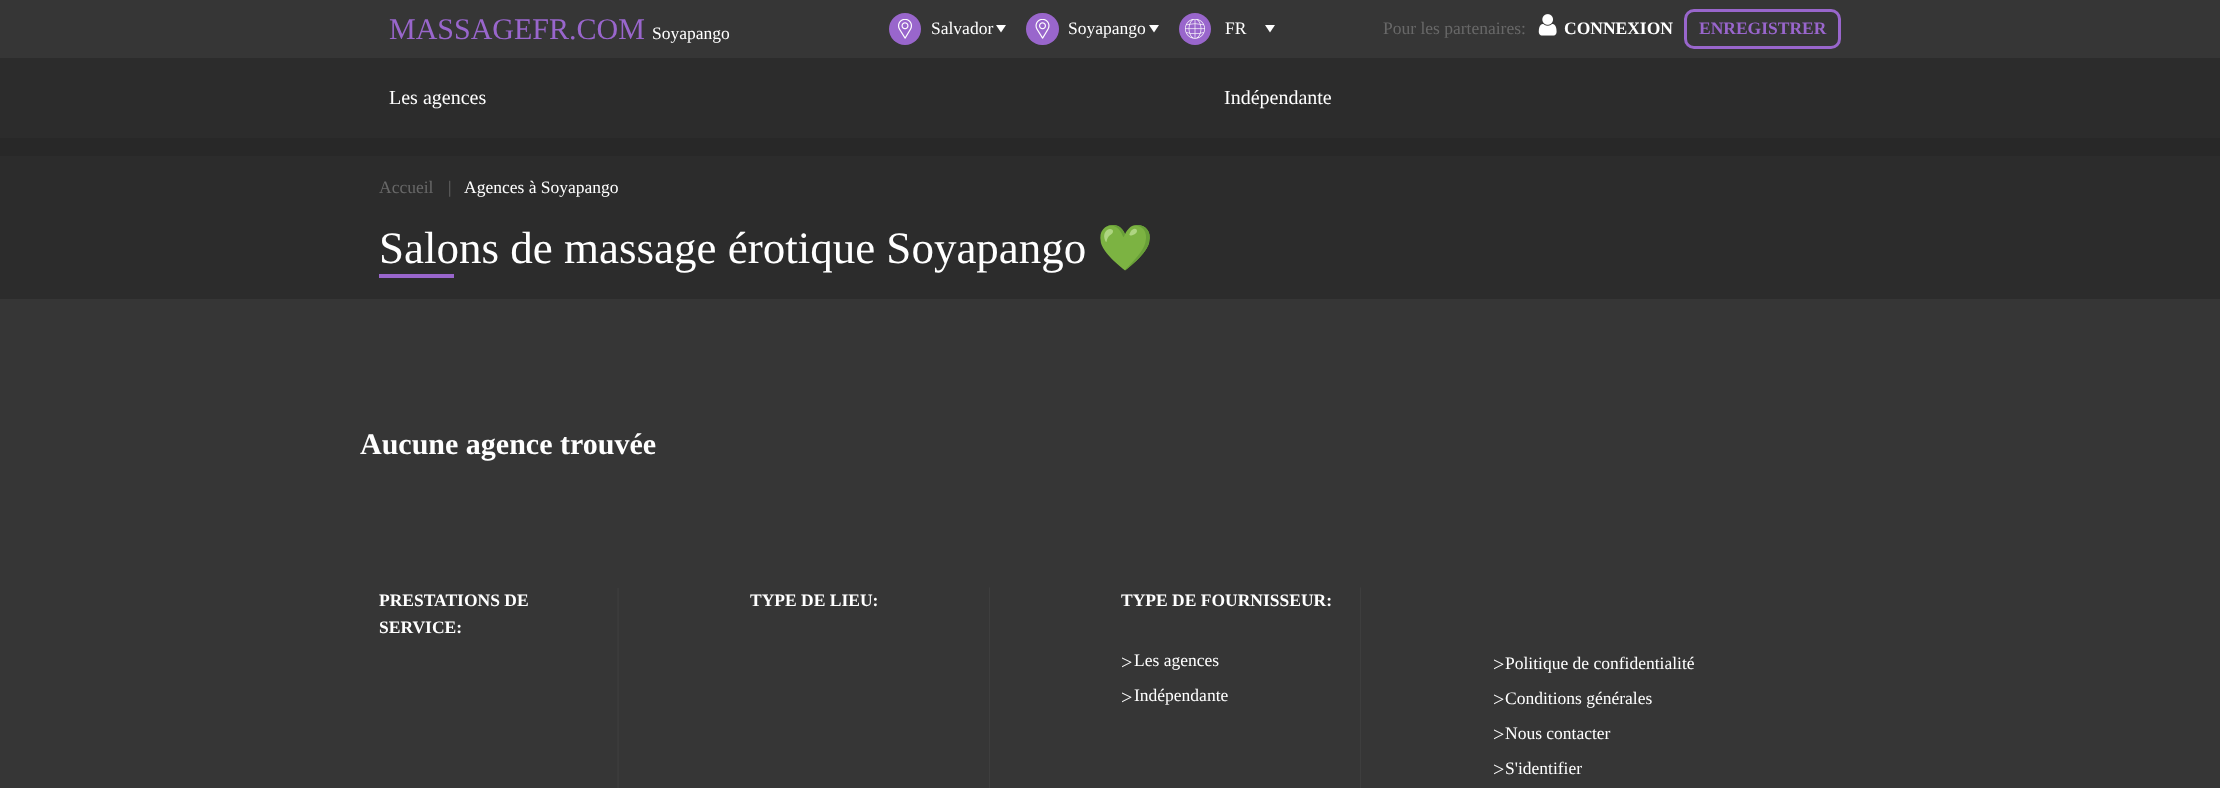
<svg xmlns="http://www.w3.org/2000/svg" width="2220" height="788">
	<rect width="100%" height="100%" fill="#282828" />
	<rect x="0" y="0" width="2220" height="58" fill="#363636" />
	<text x="389" y="39" font-family="Liberation Serif" font-size="30" fill="#9966CC">MASSAGEFR.COM</text>
	<text x="652" y="39" font-family="Liberation Serif" font-size="17.5" fill="#FFFFFF">Soyapango</text>
	<circle cx="905" cy="29" r="16" fill="#9966CC" />
	<image x="898" y="19" width="14" height="20" href="assets/img1.png" />
	<text x="931" y="34" font-family="Liberation Serif" font-size="17.5" fill="#FFFFFF">Salvador</text>
	<path d="M996 25H1006L1001 32.5Z" fill="#FFFFFF" />
	<rect x="1026" y="13" width="33" height="32" rx="16" fill="#9966CC" />
	<image x="1035" y="19" width="15" height="20" href="assets/img2.png" />
	<text x="1068" y="34" font-family="Liberation Serif" font-size="17.5" fill="#FFFFFF">Soyapango</text>
	<path d="M1149 25H1159L1154 32.5Z" fill="#FFFFFF" />
	<circle cx="1195" cy="29" r="16" fill="#9966CC" />
	<image x="1185" y="19" width="20" height="20" href="assets/img3.png" />
	<text x="1225" y="34" font-family="Liberation Serif" font-size="17.5" fill="#FFFFFF">FR</text>
	<path d="M1265 25H1275L1270 32.5Z" fill="#FFFFFF" />
	<text x="1383" y="34" font-family="Liberation Serif" font-size="17.5" fill="#686868">Pour les partenaires:</text>
	<image x="1538" y="14" width="19" height="22" href="assets/img4.png" />
	<text x="1564" y="34" font-family="Liberation Serif" font-size="17.5" font-weight="700" fill="#FFFFFF">CONNEXION</text>
	<rect x="1685.5" y="10.5" width="154" height="37" rx="8.5" fill="none" stroke="#9966CC" stroke-width="3" />
	<text x="1699" y="34" font-family="Liberation Serif" font-size="17.5" font-weight="700" fill="#9966CC">ENREGISTRER</text>
	<rect x="0" y="58" width="2220" height="80" fill="#2C2C2C" />
	<g font-family="Liberation Serif" font-size="20" fill="#FFFFFF">
		<text x="389" y="104">Les agences</text>
		<text x="1224" y="104">Indépendante</text>
	</g>
	<rect x="0" y="156" width="2220" height="143" fill="#2C2C2C" />
	<g font-family="Liberation Serif" font-size="17.5" fill="#686868">
		<text x="379" y="193">Accueil</text>
		<text x="448" y="193">|</text>
	</g>
	<text x="464" y="193" font-family="Liberation Serif" font-size="17.5" fill="#FFFFFF">Agences à Soyapango</text>
	<text x="379" y="263" font-family="Liberation Serif" font-size="45" fill="#FFFFFF">Salons de massage érotique Soyapango</text>
	<text x="1097" y="263" font-family="Noto Color Emoji" font-size="45" fill="#FFFFFF">💚</text>
	<rect x="379" y="274" width="75" height="4" fill="#9966CC" />
	<rect x="0" y="299" width="2220" height="489" fill="#363636" />
	<text x="360" y="454" font-family="Liberation Serif" font-size="30" font-weight="700" fill="#FFFFFF">Aucune agence trouvée</text>
	<g font-family="Liberation Serif" font-size="17.5" font-weight="700" fill="#FFFFFF">
		<text x="379" y="606">PRESTATIONS DE</text>
		<text x="379" y="633">SERVICE:</text>
	</g>
	<image x="617" y="588" width="2" height="200" href="assets/img5.png" />
	<text x="750" y="606" font-family="Liberation Serif" font-size="17.5" font-weight="700" fill="#FFFFFF">TYPE DE LIEU:</text>
	<image x="989" y="587" width="1" height="201" href="assets/img6.png" />
	<text x="1121" y="606" font-family="Liberation Serif" font-size="17.5" font-weight="700" fill="#FFFFFF">TYPE DE FOURNISSEUR:</text>
	<image x="1360" y="587" width="1" height="201" href="assets/img6.png" />
	<text x="1121" y="669" font-family="Liberation Serif" font-size="20" fill="#FFFFFF">&gt;</text>
	<text x="1134" y="666" font-family="Liberation Serif" font-size="17.5" fill="#FFFFFF">Les agences</text>
	<text x="1121" y="704" font-family="Liberation Serif" font-size="20" fill="#FFFFFF">&gt;</text>
	<text x="1134" y="701" font-family="Liberation Serif" font-size="17.5" fill="#FFFFFF">Indépendante</text>
	<text x="1493" y="671" font-family="Liberation Serif" font-size="20" fill="#FFFFFF">&gt;</text>
	<text x="1505" y="669" font-family="Liberation Serif" font-size="17.5" fill="#FFFFFF">Politique de confidentialité</text>
	<text x="1493" y="706" font-family="Liberation Serif" font-size="20" fill="#FFFFFF">&gt;</text>
	<text x="1505" y="704" font-family="Liberation Serif" font-size="17.5" fill="#FFFFFF">Conditions générales</text>
	<text x="1493" y="741" font-family="Liberation Serif" font-size="20" fill="#FFFFFF">&gt;</text>
	<text x="1505" y="739" font-family="Liberation Serif" font-size="17.5" fill="#FFFFFF">Nous contacter</text>
	<text x="1493" y="776" font-family="Liberation Serif" font-size="20" fill="#FFFFFF">&gt;</text>
	<text x="1505" y="774" font-family="Liberation Serif" font-size="17.5" fill="#FFFFFF">S'identifier</text>
</svg>
